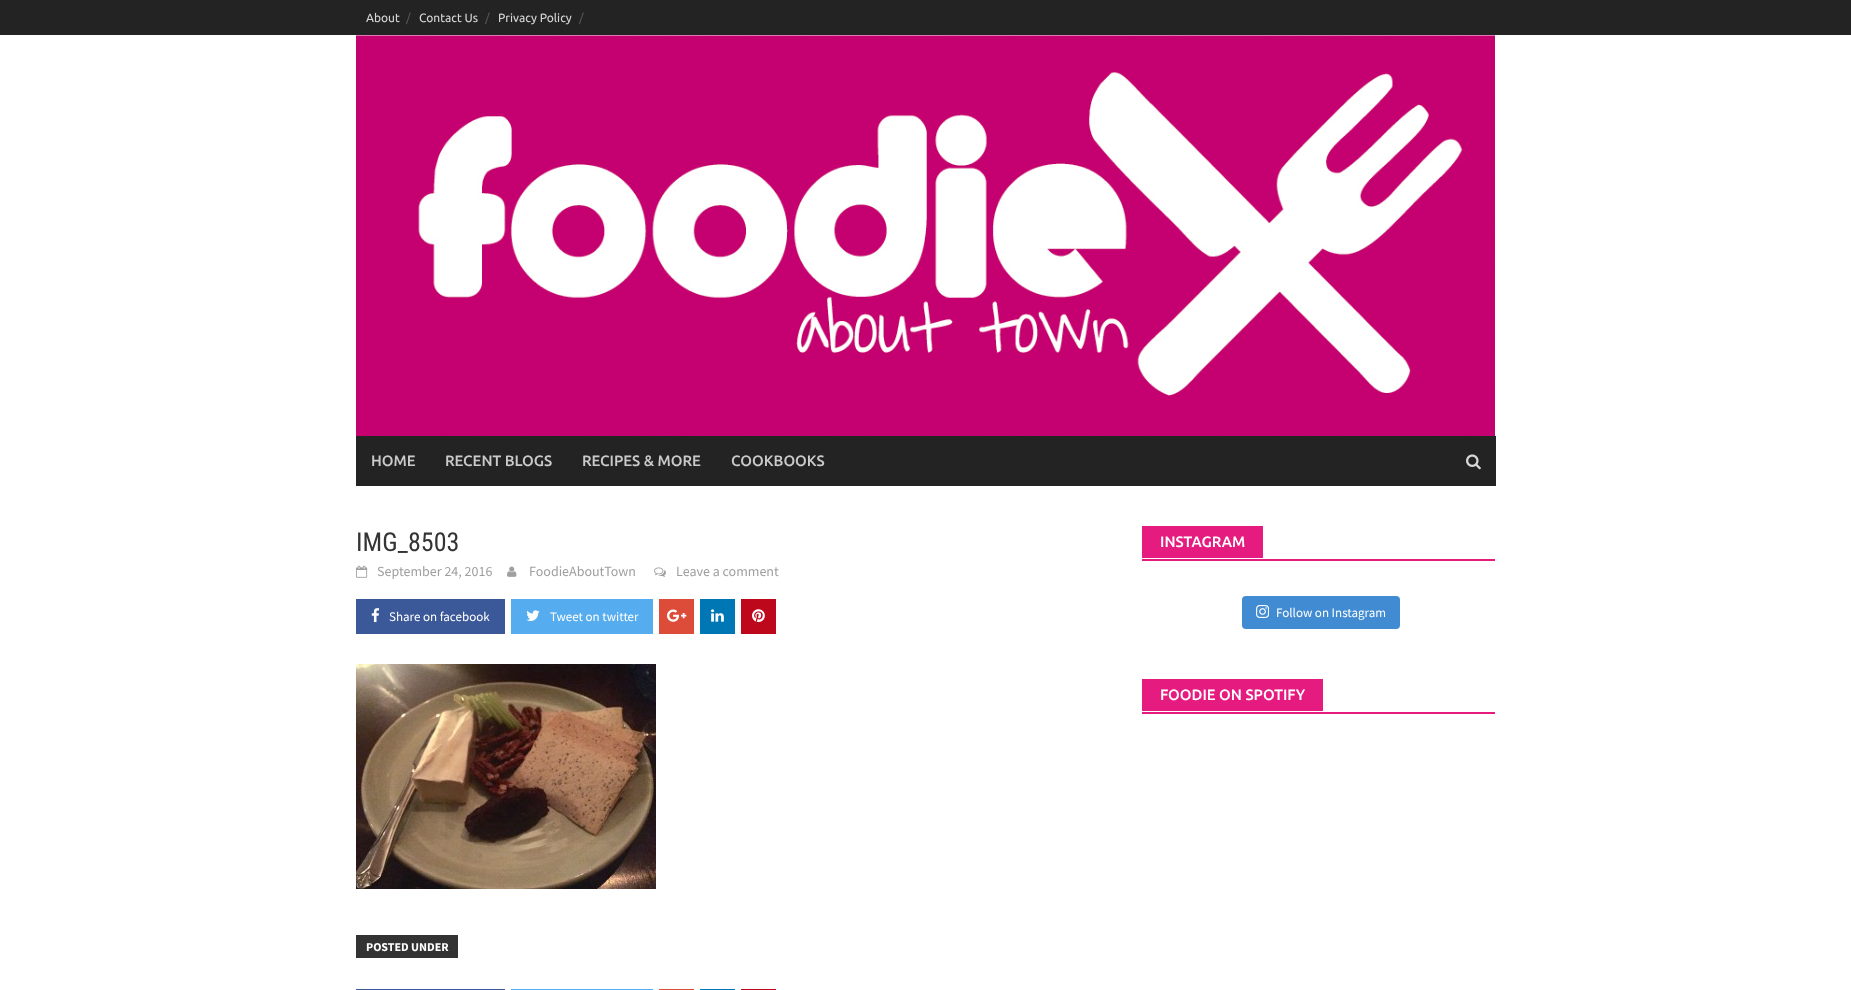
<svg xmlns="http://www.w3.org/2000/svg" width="1851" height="990">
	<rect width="100%" height="100%" fill="#FFFFFF" />
	<rect x="0" y="0" width="1851" height="35" fill="#232323" />
	<text x="366" y="22" font-family="Ubuntu" font-size="12" fill="#D7D7D7">About</text>
	<text x="406" y="22" font-family="Ubuntu" font-size="12" fill="#555555">/</text>
	<text x="419" y="22" font-family="Ubuntu" font-size="12" fill="#D7D7D7">Contact Us</text>
	<text x="485" y="22" font-family="Ubuntu" font-size="12" fill="#555555">/</text>
	<text x="498" y="22" font-family="Ubuntu" font-size="12" fill="#D7D7D7">Privacy Policy</text>
	<text x="579" y="22" font-family="Ubuntu" font-size="12" fill="#555555">/</text>
	<image x="356" y="35" width="1139" height="401" href="assets/img1.png" />
	<rect x="356" y="436" width="1140" height="50" fill="#232323" />
	<g font-family="Ubuntu" font-size="15" font-weight="500" fill="#CACACA">
		<text x="371" y="466">HOME</text>
		<text x="445" y="466">RECENT BLOGS</text>
		<text x="582" y="466">RECIPES &amp; MORE</text>
		<text x="731" y="466">COOKBOOKS</text>
	</g>
	<image x="1466" y="454" width="15" height="16" href="assets/img2.png" />
	<text x="356" y="551" font-family="Roboto Condensed" font-size="26" fill="#353434">IMG_8503</text>
	<image x="356" y="565" width="12" height="13" href="assets/img3.png" />
	<text x="377" y="576" font-family="Source Sans Pro" font-size="14" fill="#9F9F9F">September 24, 2016</text>
	<image x="507" y="566" width="10" height="11" href="assets/img4.png" />
	<text x="529" y="576" font-family="Source Sans Pro" font-size="14" fill="#9F9F9F">FoodieAboutTown</text>
	<image x="654" y="567" width="12" height="10" href="assets/img5.png" />
	<text x="676" y="576" font-family="Source Sans Pro" font-size="14" fill="#9F9F9F">Leave a comment</text>
	<rect x="356" y="599" width="149" height="35" fill="#3B5999" />
	<image x="371" y="608" width="9" height="15" href="assets/img6.png" />
	<text x="389" y="621" font-family="Source Sans Pro" font-size="13" fill="#FFFFFF">Share on facebook</text>
	<rect x="511" y="599" width="142" height="35" fill="#55ACEE" />
	<image x="526" y="610" width="14" height="11" href="assets/img7.png" />
	<text x="550" y="621" font-family="Source Sans Pro" font-size="13" fill="#FFFFFF">Tweet on twitter</text>
	<rect x="659" y="599" width="35" height="35" fill="#DD4B39" />
	<image x="667" y="609" width="20" height="13" href="assets/img8.png" />
	<rect x="700" y="599" width="35" height="35" fill="#0077B5" />
	<image x="711" y="609" width="13" height="13" href="assets/img9.png" />
	<rect x="741" y="599" width="35" height="35" fill="#BD081C" />
	<image x="752" y="609" width="13" height="14" href="assets/img10.png" />
	<image x="356" y="664" width="300" height="225" href="assets/img11.png" />
	<rect x="356" y="935" width="102" height="23" fill="#333333" />
	<text x="366" y="951" font-family="Source Sans Pro" font-size="12" font-weight="700" fill="#FFFFFF">POSTED UNDER</text>
	<rect x="356" y="989" width="149" height="1" fill="#3B5999" />
	<rect x="511" y="989" width="142" height="1" fill="#55ACEE" />
	<rect x="659" y="989" width="35" height="1" fill="#DD4B39" />
	<rect x="700" y="989" width="35" height="1" fill="#0077B5" />
	<rect x="741" y="989" width="35" height="1" fill="#BD081C" />
	<rect x="1142" y="559" width="353" height="2" fill="#E51B80" />
	<rect x="1142" y="526" width="121" height="32" fill="#E51B80" />
	<text x="1160" y="547" font-family="Ubuntu" font-size="15" font-weight="500" fill="#FFFFFF">INSTAGRAM</text>
	<rect x="1242" y="596" width="158" height="33" rx="4" fill="#408BD1" />
	<image x="1256" y="605" width="13" height="13" href="assets/img12.png" />
	<text x="1276" y="617" font-family="Source Sans Pro" font-size="13" fill="#FFFFFF">Follow on Instagram</text>
	<rect x="1142" y="712" width="353" height="2" fill="#E51B80" />
	<rect x="1142" y="679" width="181" height="32" fill="#E51B80" />
	<text x="1160" y="700" font-family="Ubuntu" font-size="15" font-weight="500" fill="#FFFFFF">FOODIE ON SPOTIFY</text>
</svg>
